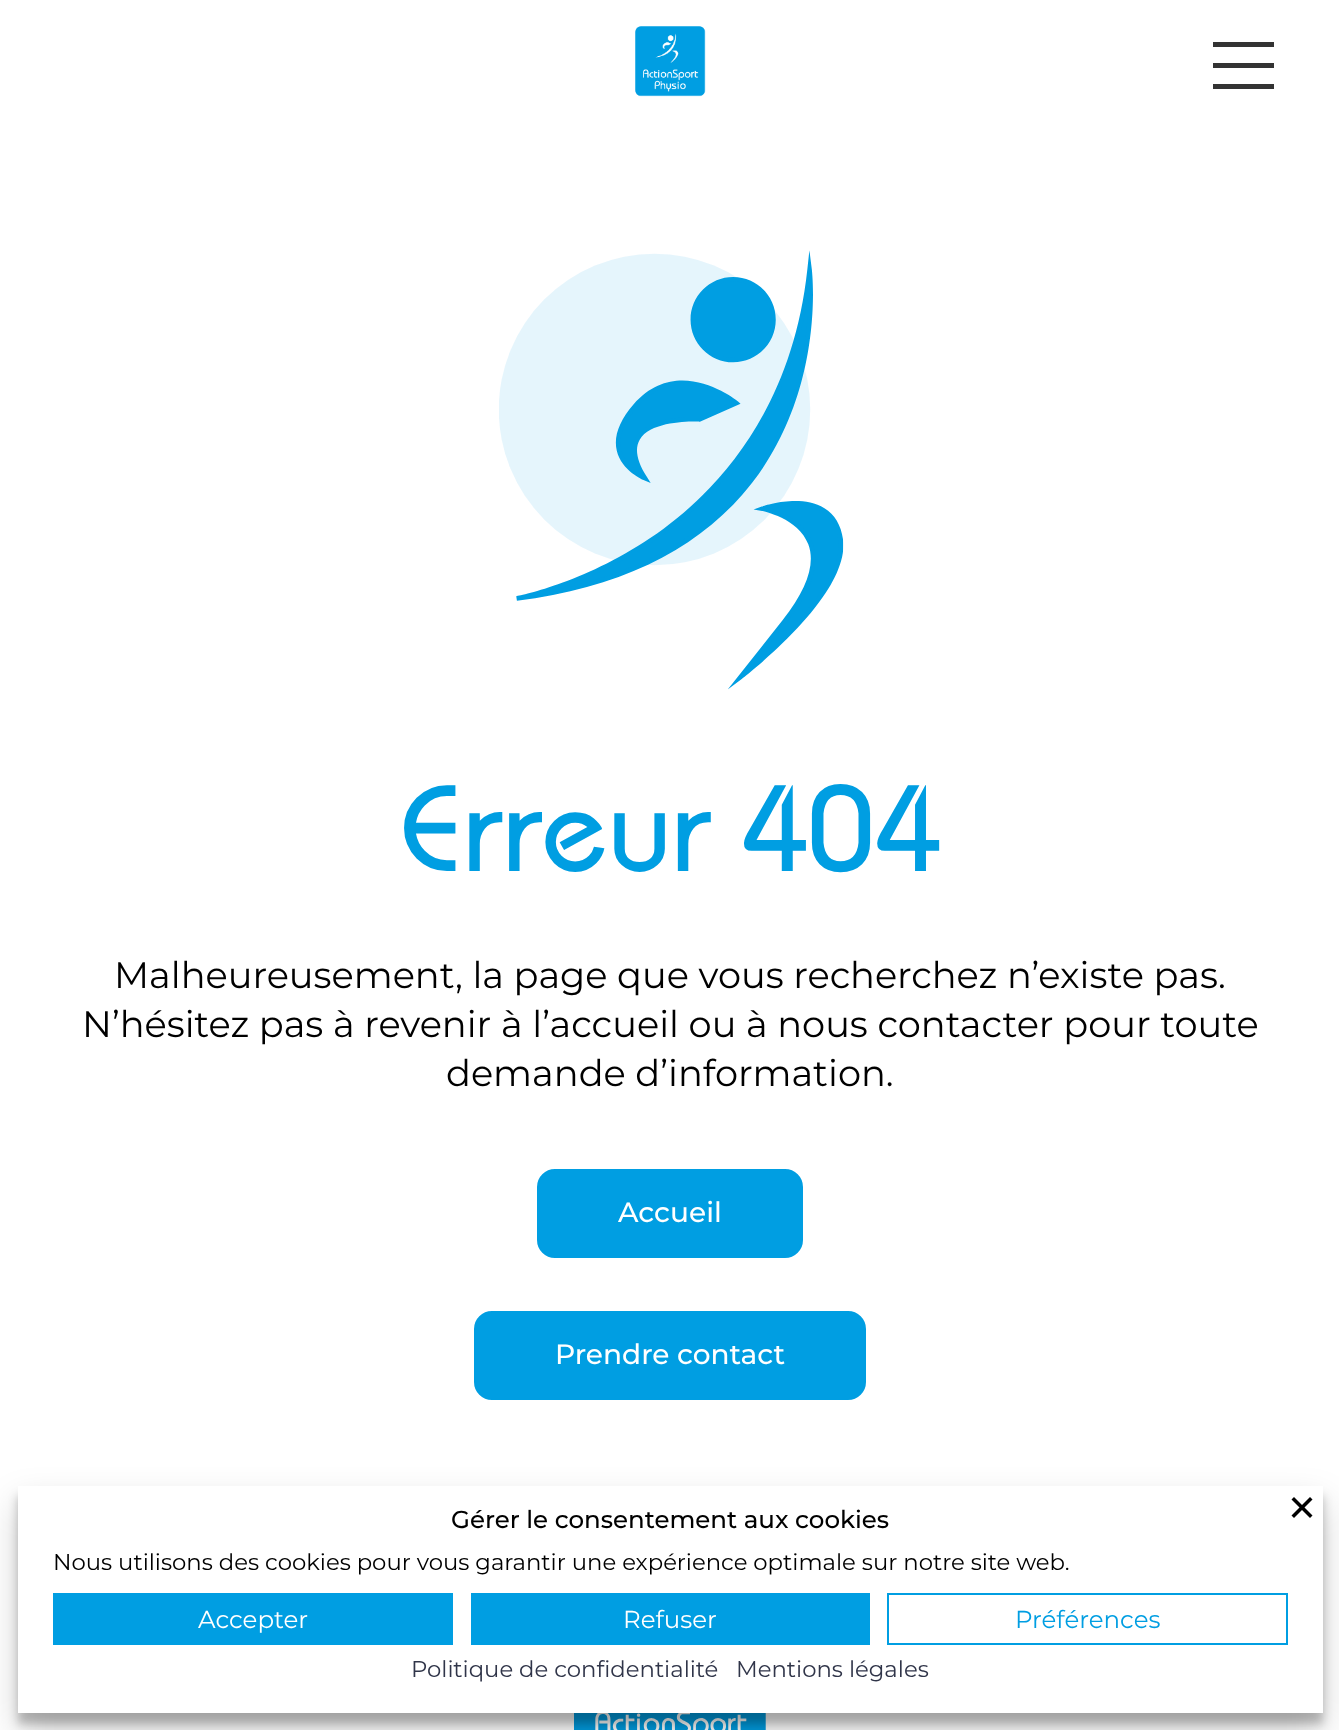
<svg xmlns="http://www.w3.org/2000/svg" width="1339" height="1730">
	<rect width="100%" height="100%" fill="#FFFFFF" />
	<image x="635" y="26" width="71" height="71" href="assets/img1.png" />
	<rect x="1213" y="42" width="61" height="5" fill="#333333" />
	<rect x="1213" y="63" width="61" height="5" fill="#333333" />
	<rect x="1213" y="84" width="61" height="5" fill="#333333" />
	<image x="499" y="250" width="345" height="440" href="assets/img2.png" />
	<text x="400" y="871" font-family="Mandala" font-size="122.5" fill="#009EE2">Erreur 404</text>
	<g font-family="Montserrat" font-size="36.75" fill="#000000">
		<text x="114" y="988">Malheureusement, la page que vous recherchez n’existe pas.</text>
		<text x="82" y="1037">N’hésitez pas à revenir à l’accueil ou à nous contacter pour toute</text>
		<text x="446" y="1086">demande d’information.</text>
	</g>
	<rect x="538" y="1170" width="264" height="87" rx="17" fill="#009EE2" stroke="#009EE2" stroke-width="2" />
	<text x="618" y="1222" font-family="Montserrat" font-size="28" font-weight="500" fill="#FFFFFF">Accueil</text>
	<rect x="475" y="1312" width="390" height="87" rx="17" fill="#009EE2" stroke="#009EE2" stroke-width="2" />
	<text x="555" y="1364" font-family="Montserrat" font-size="28" font-weight="500" fill="#FFFFFF">Prendre contact</text>
	<image x="574" y="1713" width="192" height="17" href="assets/img3.png" />
	<rect x="18" y="1496" width="1305" height="228" fill="#000000" fill-opacity="0.23" filter="blur(5px)" />
	<rect x="18" y="1503" width="1305" height="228" fill="#000000" fill-opacity="0.19" filter="blur(17.5px)" />
	<rect x="18" y="1486" width="1305" height="227" fill="#FFFFFF" />
	<text x="451" y="1528" font-family="Montserrat" font-size="24.5" font-weight="500" fill="#000000">Gérer le consentement aux cookies</text>
	<path d="M1310 1497L1312.5 1499.5L1294 1518L1291.5 1515.5Z" fill="#000000" />
	<path d="M1291.5 1499.5L1294 1497L1312.5 1515.5L1310 1518Z" fill="#000000" />
	<text x="53" y="1570" font-family="Montserrat" font-size="22.75" fill="#000000">Nous utilisons des cookies pour vous garantir une expérience optimale sur notre site web.</text>
	<rect x="53" y="1593" width="400" height="52" fill="#009EE2" />
	<text x="198" y="1628" font-family="Montserrat" font-size="24.5" fill="#FFFFFF">Accepter</text>
	<rect x="471" y="1593" width="399" height="52" fill="#009EE2" />
	<text x="623" y="1628" font-family="Montserrat" font-size="24.5" fill="#FFFFFF">Refuser</text>
	<rect x="888" y="1594" width="399" height="50" fill="none" stroke="#009EE2" stroke-width="2" />
	<text x="1015" y="1628" font-family="Montserrat" font-size="24.5" fill="#009EE2">Préférences</text>
	<g font-family="Montserrat" font-size="22.75" fill="#303549">
		<text x="411" y="1677">Politique de confidentialité</text>
		<text x="736" y="1677">Mentions légales</text>
	</g>
</svg>
